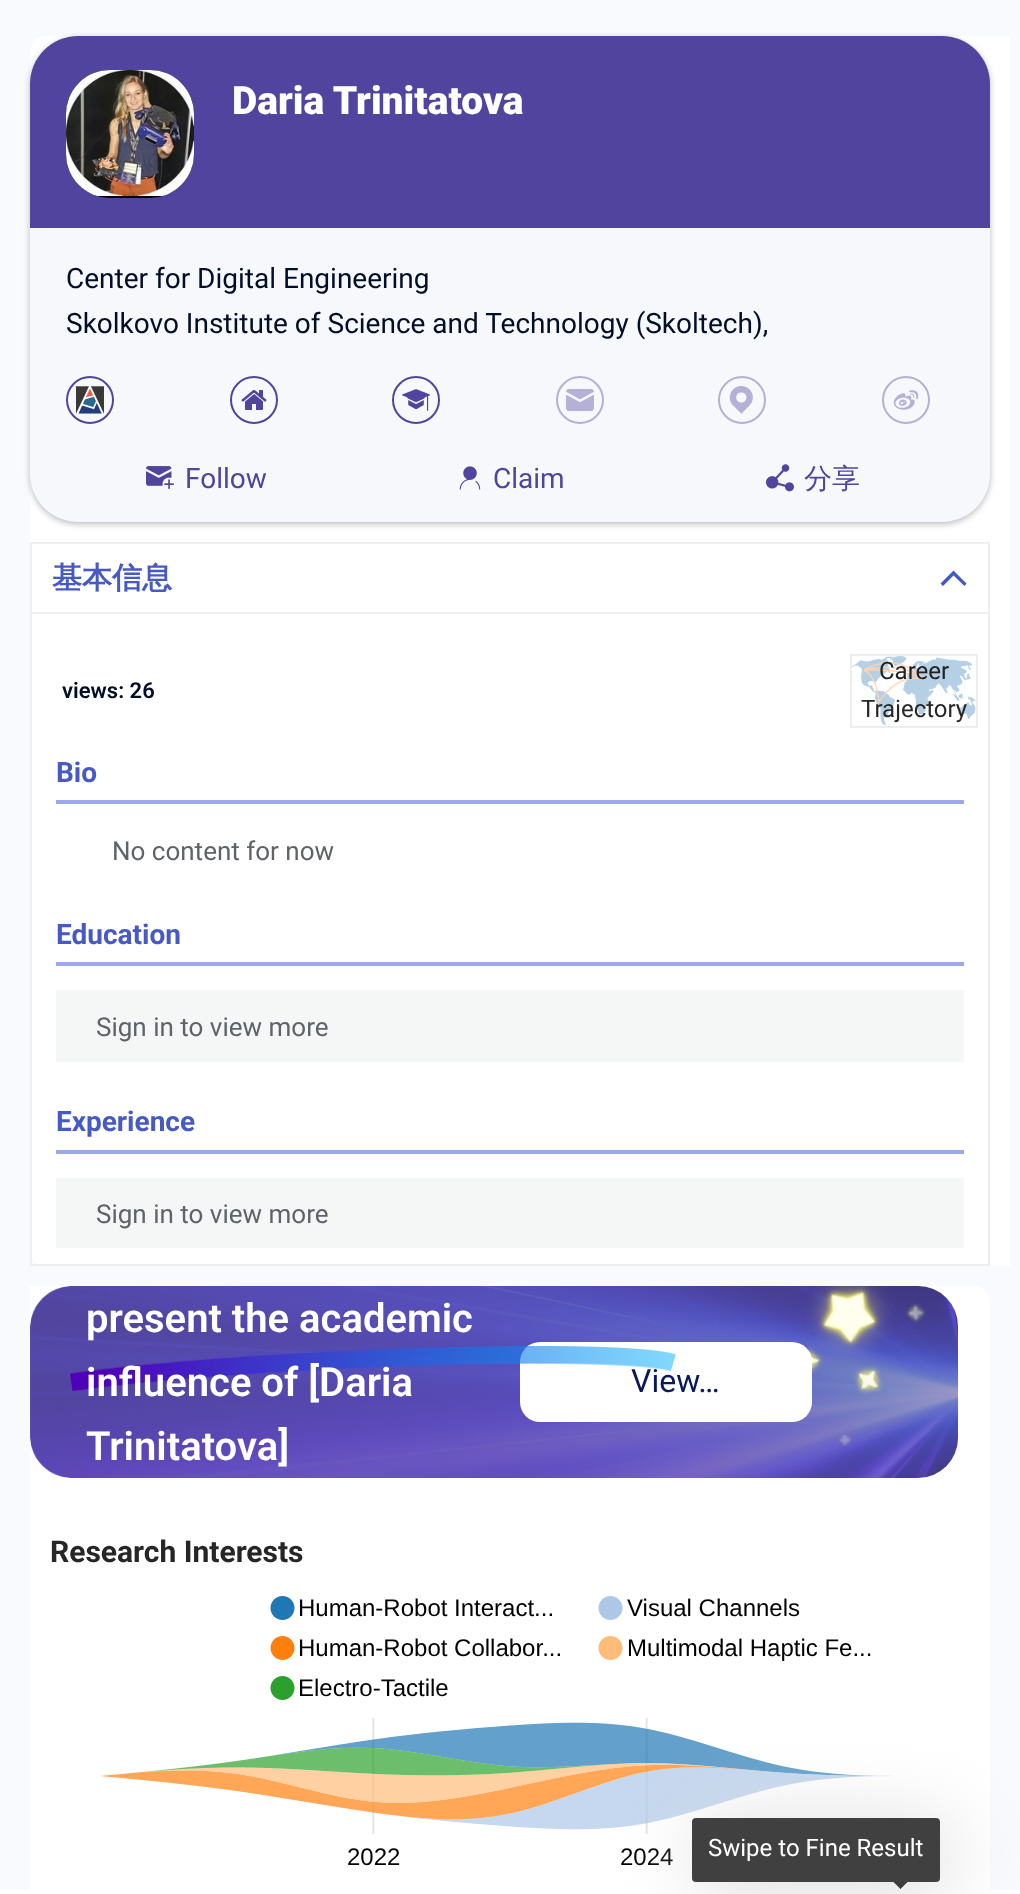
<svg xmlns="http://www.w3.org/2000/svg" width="1020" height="1894">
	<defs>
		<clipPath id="clip1"><path d="M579 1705H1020V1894H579ZM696 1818H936C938 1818 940 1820 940 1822V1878C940 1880 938 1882 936 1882H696C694 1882 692 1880 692 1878V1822C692 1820 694 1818 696 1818Z" clip-rule="evenodd" /></clipPath>
		<clipPath id="clip2"><rect x="888" y="1882" width="26" height="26" /></clipPath>
	</defs>
	<rect width="100%" height="100%" fill="#FFFFFF" />
	<rect x="0" y="0" width="1020" height="1890" fill="#F9FAFD" />
	<path d="M46 36H1010V1266H46C37 1266 30 1259 30 1250V52C30 43 37 36 46 36Z" fill="#FFFFFF" />
	<rect x="30" y="38" width="960" height="486" rx="48" fill="#9E9EA7" fill-opacity="0.7" filter="blur(3px)" />
	<rect x="30" y="36" width="960" height="486" rx="48" fill="#F7F8FC" />
	<path d="M78 36H942C968.5 36 990 57.5 990 84V228H30V84C30 57.5 51.5 36 78 36Z" fill="#51449E" />
	<rect x="66" y="70" width="128" height="128" rx="44" fill="#000000" />
	<image x="66" y="70" width="128" height="126" href="assets/img1.png" />
	<text x="232" y="114" font-family="Roboto" font-size="39" font-weight="900" fill="#FFFFFF">Daria Trinitatova</text>
	<g font-family="Roboto" font-size="28" fill="#000E28">
		<text x="66" y="288">Center for Digital Engineering</text>
		<text x="66" y="333">Skolkovo Institute of Science and Technology (Skoltech),</text>
	</g>
	<circle cx="90" cy="400" r="23" fill="none" stroke="#51449E" stroke-width="2" />
	<image x="76" y="386" width="28" height="28" href="assets/img2.png" />
	<circle cx="254" cy="400" r="23" fill="none" stroke="#51449E" stroke-width="2" />
	<image x="241" y="390" width="26" height="20" href="assets/img3.png" />
	<circle cx="416" cy="400" r="23" fill="none" stroke="#51449E" stroke-width="2" />
	<image x="402" y="389" width="28" height="22" href="assets/img4.png" />
	<circle cx="580" cy="400" r="23" fill="none" stroke="#B5B0D6" stroke-width="2" />
	<image x="566" y="389" width="28" height="22" href="assets/img5.png" />
	<circle cx="742" cy="400" r="23" fill="none" stroke="#B5B0D6" stroke-width="2" />
	<image x="729" y="386" width="24" height="28" href="assets/img6.png" />
	<circle cx="906" cy="400" r="23" fill="none" stroke="#B5B0D6" stroke-width="2" />
	<image x="893" y="390" width="26" height="20" href="assets/img7.png" />
	<image x="146" y="466" width="28" height="24" href="assets/img8.png" />
	<text x="185" y="488" font-family="Roboto" font-size="28" fill="#51449E">Follow</text>
	<image x="459" y="466" width="22" height="24" href="assets/img9.png" />
	<text x="493" y="488" font-family="Roboto" font-size="28" fill="#51449E">Claim</text>
	<image x="766" y="464" width="28" height="28" href="assets/img10.png" />
	<text x="804" y="488" font-family="WenQuanYi Zen Hei" font-size="28" font-weight="500" fill="#51449E">分享</text>
	<rect x="31" y="543" width="958" height="722" fill="none" stroke="#EEEEEE" stroke-width="2" />
	<rect x="32" y="612" width="956" height="2" fill="#EEEEEE" />
	<text x="52" y="588" font-family="WenQuanYi Zen Hei" font-size="30" font-weight="700" fill="#4759C5">基本信息</text>
	<path d="M966.5 583.5L964.5 586L953.5 575.5L943 586L940.5 583.5L953.5 570.5Z" fill="#4759C5" />
	<text x="62" y="698" font-family="Roboto" font-size="22" font-weight="600" fill="#000E28">views: 26</text>
	<rect x="851" y="655" width="126" height="72" fill="none" stroke="#EEEDED" stroke-width="2" />
	<image x="852" y="656" width="124" height="70" href="assets/img11.png" />
	<text x="879" y="679" font-family="Roboto" font-size="24" fill="#202122">Career</text>
	<text x="861" y="717" font-family="Roboto" font-size="24" fill="#262626">Trajectory</text>
	<rect x="56" y="800" width="908" height="4" fill="#9DA8EB" />
	<text x="56" y="782" font-family="Roboto" font-size="28" font-weight="700" fill="#4759C5">Bio</text>
	<text x="112" y="860" font-family="Roboto" font-size="26" fill="#5F6368">No content for now</text>
	<rect x="56" y="962" width="908" height="4" fill="#9DA8EB" />
	<text x="56" y="944" font-family="Roboto" font-size="28" font-weight="700" fill="#4759C5">Education</text>
	<rect x="56" y="990" width="908" height="72" fill="#F5F7F7" />
	<text x="96" y="1036" font-family="Roboto" font-size="26" fill="#5F6368">Sign in to view more</text>
	<rect x="56" y="1150" width="908" height="4" fill="#9DA8EB" />
	<text x="56" y="1131" font-family="Roboto" font-size="28" font-weight="700" fill="#4759C5">Experience</text>
	<rect x="56" y="1178" width="908" height="70" fill="#F5F7F7" />
	<text x="96" y="1223" font-family="Roboto" font-size="26" fill="#5F6368">Sign in to view more</text>
	<path d="M30 1286H974C983 1286 990 1293 990 1302V1890H30Z" fill="#FFFFFF" />
	<image x="30" y="1286" width="928" height="192" href="assets/img12.png" />
	<text x="86" y="1332" font-family="Roboto" font-size="40" font-weight="600" fill="#FFFFFF">present the academic</text>
	<rect x="520" y="1342" width="292" height="80" rx="20" fill="#FFFFFF" />
	<text x="631" y="1392" font-family="Roboto" font-size="32" fill="#08185D">View…</text>
	<image x="70" y="1346" width="606" height="45" href="assets/img13.png" />
	<g font-family="Roboto" font-size="40" font-weight="600" fill="#FFFFFF">
		<text x="86" y="1396">influence of [Daria</text>
		<text x="86" y="1460">Trinitatova]</text>
	</g>
	<text x="50" y="1562" font-family="Roboto" font-size="30" font-weight="700" fill="#262626">Research Interests</text>
	<image x="100" y="1596" width="793" height="238" href="assets/img14.png" />
	<g font-family="Liberation Sans" font-size="24" fill="#000000">
		<text x="298" y="1616">Human-Robot Interact...</text>
		<text x="627" y="1616">Visual Channels</text>
		<text x="298" y="1656">Human-Robot Collabor...</text>
		<text x="627" y="1656">Multimodal Haptic Fe...</text>
		<text x="298" y="1696">Electro-Tactile</text>
		<text x="347" y="1865">2022</text>
		<text x="620" y="1865">2024</text>
	</g>
	<g clip-path="url(#clip1)">
		<rect x="700" y="1826" width="248" height="64" rx="4" fill="#D8D8D8" filter="blur(40px)" />
	</g>
	<rect x="692" y="1818" width="248" height="64" rx="4" fill="#000000" fill-opacity="0.75" />
	<text x="708" y="1856" font-family="Roboto" font-size="24" fill="#FFFFFF">Swipe to Fine Result</text>
	<g clip-path="url(#clip2)">
		<path d="M900.5 1875L907.5 1882L900.5 1889L893.5 1882Z" fill="#3C3C3C" />
	</g>
</svg>
